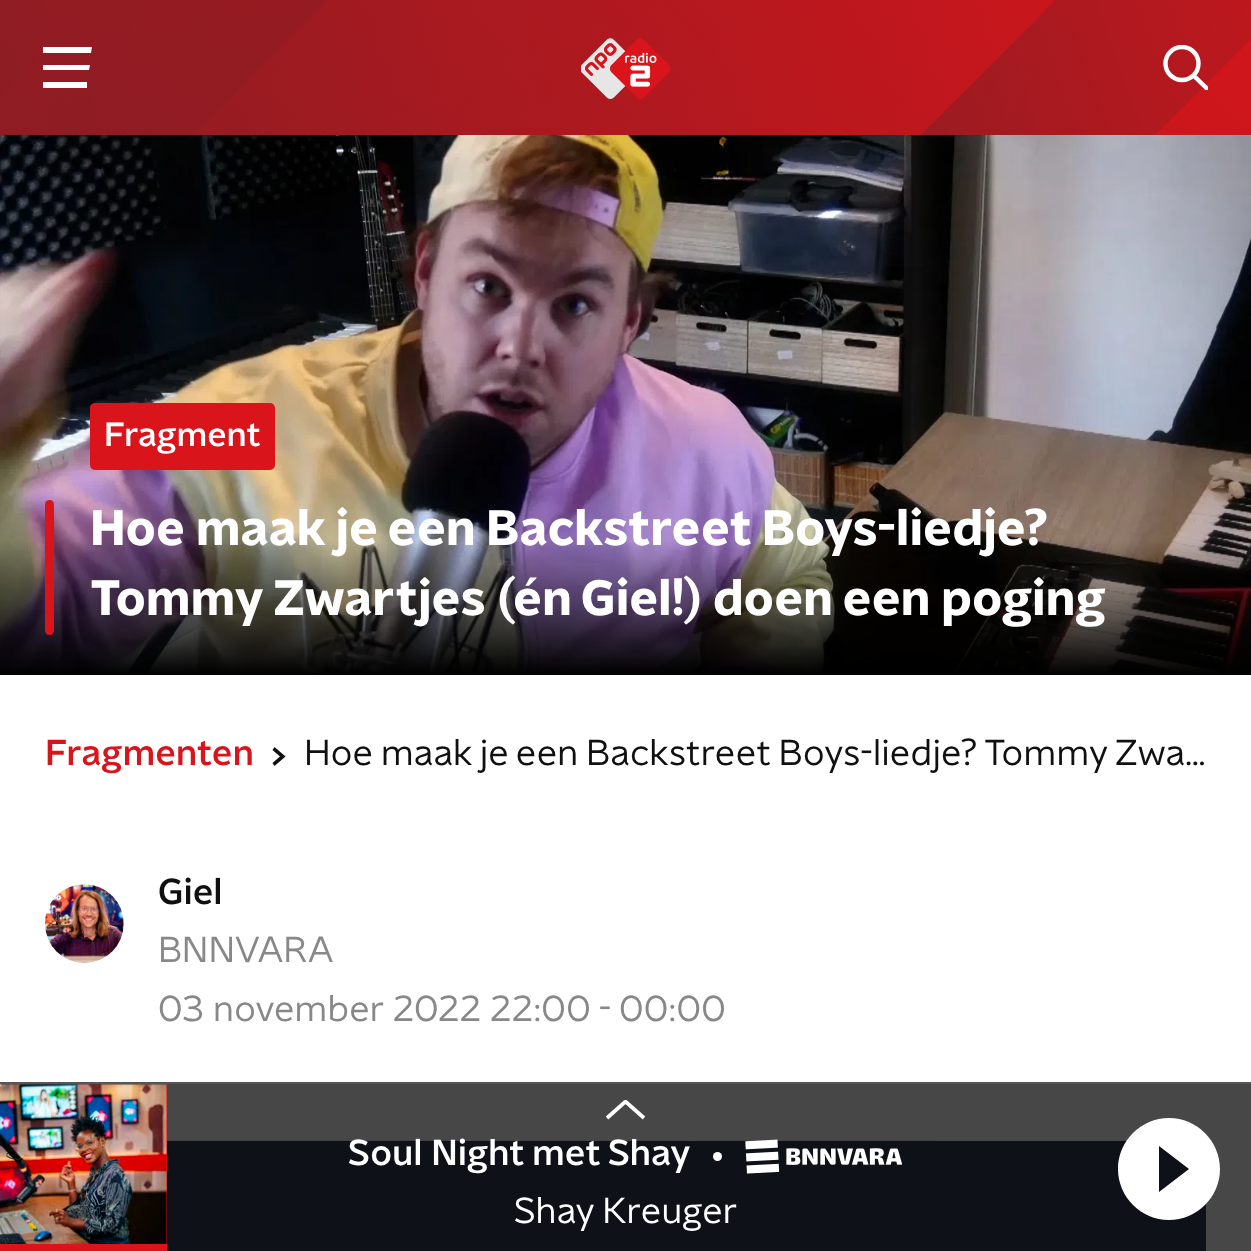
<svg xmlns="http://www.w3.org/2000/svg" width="1251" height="1251">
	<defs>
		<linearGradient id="g1" gradientUnits="userSpaceOnUse" x1="1165" y1="319" x2="86" y2="-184"><stop offset="0.11" stop-color="#D9151B" /><stop offset="1" stop-color="#9C1B21" /></linearGradient>
		<clipPath id="clip1"><rect x="1163" y="45" width="45" height="45" /></clipPath>
		<clipPath id="clip2"><rect x="605" y="1100" width="41" height="21" /></clipPath>
	</defs>
	<rect width="100%" height="100%" fill="#FFFFFF" />
	<rect x="0" y="1084" width="1251" height="167" fill="#474747" />
	<rect x="0" y="0" width="1251" height="135" fill="url(#g1)" />
	<image x="0" y="0" width="1251" height="135" href="assets/img1.png" />
	<path d="M43 47H92L91 53H43ZM43 65H90L89 70H43ZM43 82H87V88H43Z" fill="#FFFFFF" />
	<image x="581" y="38" width="90" height="61" href="assets/img2.png" />
	<g clip-path="url(#clip1)">
		<circle cx="1182" cy="63.5" r="16.5" fill="none" stroke="#FFFFFF" stroke-width="4.4" />
		<path d="M1193.5 75.5L1207 88.5" fill="none" stroke="#FFFFFF" stroke-width="4.4" stroke-linecap="square" />
	</g>
	<image x="0" y="135" width="1251" height="540" href="assets/img3.png" />
	<rect x="90" y="403" width="185" height="67" rx="5" fill="#D9151B" />
	<text x="104" y="446" font-family="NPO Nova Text" font-size="33.75" font-weight="500" fill="#FFFFFF">Fragment</text>
	<rect x="45" y="500" width="9" height="135" rx="4.5" fill="#D9151B" />
	<g font-family="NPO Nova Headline" font-size="49.5" font-weight="700" fill="#FFFFFF">
		<text x="90" y="545" word-spacing="-0.25">Hoe maak je een Backstreet Boys-liedje?</text>
		<text x="90" y="615">Tommy Zwartjes (én Giel!) doen een poging</text>
	</g>
	<text x="45" y="765" font-family="NPO Nova Text" font-size="36" font-weight="500" fill="#D9151B">Fragmenten</text>
	<path d="M274.5 747L285.5 756.5L274.5 766L272.5 763L280 756.5L272.5 750Z" fill="#101010" fill-rule="evenodd" />
	<text x="304" y="765" font-family="NPO Nova Text" font-size="36" fill="#101010">Hoe maak je een Backstreet Boys-liedje? Tommy Zwa…</text>
	<image x="45" y="884" width="79" height="79" href="assets/img4.png" />
	<text x="158" y="904" font-family="NPO Nova Text" font-size="36" font-weight="500" fill="#101010">Giel</text>
	<g font-family="NPO Nova Text" font-size="36" fill="#888888">
		<text x="158" y="962">BNNVARA</text>
		<text x="158" y="1021">03 november 2022 22:00 - 00:00</text>
	</g>
	<image x="167" y="1140" width="961" height="1" href="assets/img5.png" />
	<rect x="167" y="1141" width="1039" height="110" fill="#0E1117" />
	<rect x="0" y="1082" width="1251" height="2" fill="#565656" />
	<rect x="166" y="1085" width="1" height="159" fill="#D9151B" />
	<image x="0" y="1084" width="167" height="160" href="assets/img6.png" />
	<rect x="0" y="1244" width="167" height="7" fill="#D9151B" />
	<g clip-path="url(#clip2)">
		<path d="M644 1118L625.5 1101.5L607 1118" fill="none" stroke="#FFFFFF" stroke-width="3.7" />
	</g>
	<text x="348" y="1165" font-family="NPO Nova Text" font-size="36" font-weight="500" fill="#FFFFFF">Soul Night met Shay</text>
	<circle cx="717.5" cy="1156.5" r="4.5" fill="#FFFFFF" />
	<image x="745" y="1139" width="157" height="35" href="assets/img7.png" />
	<text x="514" y="1223" font-family="NPO Nova Text" font-size="36" fill="#FFFFFF">Shay Kreuger</text>
	<path d="M1169 1118C1141 1118 1118 1141 1118 1169C1118 1197 1141 1220 1169 1220C1197 1220 1220 1197 1220 1169C1220 1141 1197 1118 1169 1118ZM1159 1192V1146L1189 1169Z" fill="#FFFFFF" />
</svg>
